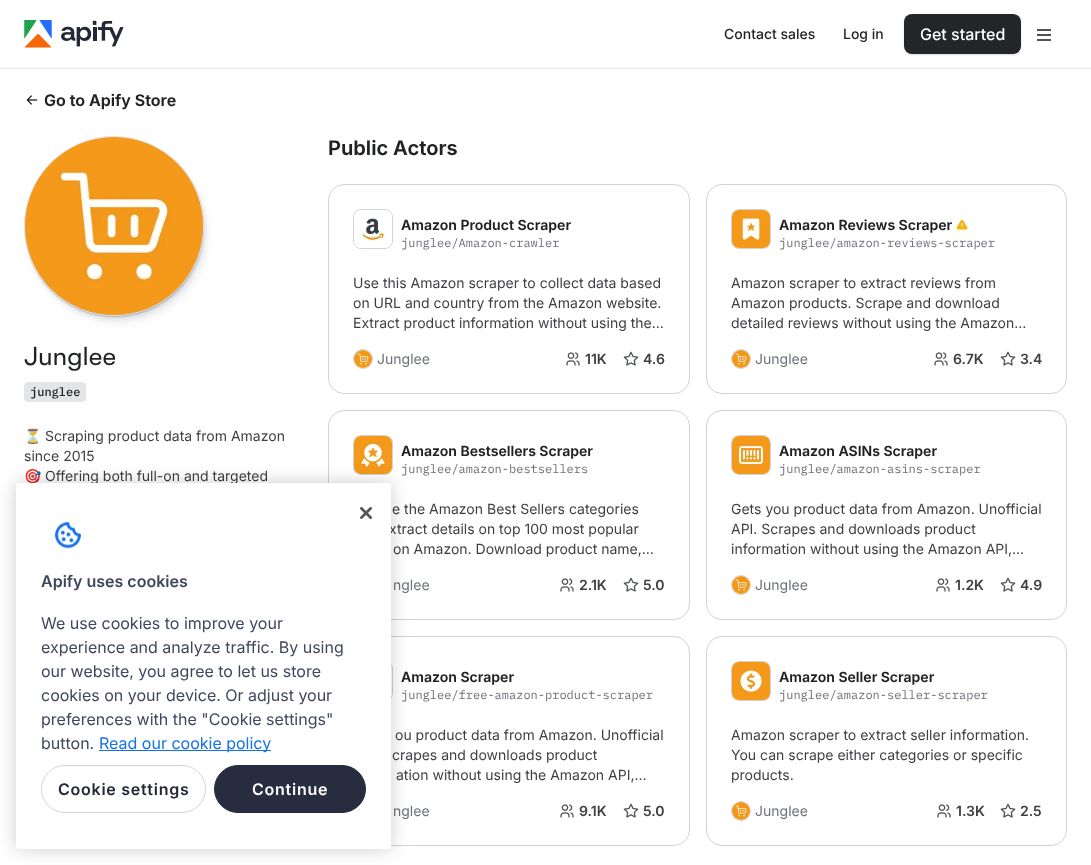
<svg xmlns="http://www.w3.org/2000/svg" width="1091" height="865">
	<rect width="100%" height="100%" fill="#FFFFFF" />
	<rect x="0" y="68" width="1091" height="1" fill="#E4E5E6" />
	<image x="24" y="20" width="100" height="28" href="assets/img1.png" />
	<g font-family="Inter" font-size="14" font-weight="500" fill="#1F2123">
		<text x="724" y="39">Contact sales</text>
		<text x="843" y="39">Log in</text>
	</g>
	<rect x="904" y="15" width="117" height="40" rx="8" fill="#3F475D" fill-opacity="0.15" filter="blur(1px)" />
	<rect x="906" y="16" width="114" height="38" rx="7" fill="#3F475D" fill-opacity="0.14" filter="blur(0.5px)" />
	<rect x="908" y="19" width="112" height="35" rx="6" fill="#3F475D" fill-opacity="0.13" filter="blur(1px)" />
	<rect x="904" y="14" width="117" height="40" rx="8" fill="#242528" />
	<text x="920" y="40" font-family="Inter" font-size="16" font-weight="500" fill="#FFFFFF">Get started</text>
	<rect x="1037" y="29" width="14" height="2" fill="#4F5257" />
	<rect x="1037" y="34" width="14" height="2" fill="#4F5257" />
	<rect x="1037" y="39" width="14" height="2" fill="#4F5257" />
	<image x="26" y="95" width="12" height="10" href="assets/img2.png" />
	<text x="44" y="106" font-family="Inter" font-size="16" font-weight="600" fill="#1F2123">Go to Apify Store</text>
	<rect x="24" y="137" width="180" height="180" rx="90" fill="#3F475D" fill-opacity="0.15" filter="blur(0.5px)" />
	<rect x="26" y="138" width="178" height="179" rx="89" fill="#3F475D" fill-opacity="0.14" filter="blur(1px)" />
	<rect x="27" y="141" width="177" height="177" rx="88.5" fill="#3F475D" fill-opacity="0.13" filter="blur(2px)" />
	<rect x="31" y="147" width="175" height="175" rx="87.5" fill="#3F475D" fill-opacity="0.12" filter="blur(5px)" />
	<circle cx="114" cy="226" r="89.5" fill="none" stroke="#E4E5E6" />
	<image x="25" y="137" width="178" height="178" href="assets/img3.png" />
	<text x="24" y="365" font-family="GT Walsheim" font-size="26" fill="#1F2123">Junglee</text>
	<rect x="24" y="382" width="62" height="20" rx="4" fill="#E4E5E6" />
	<text x="30" y="396" font-family="IBM Plex Mono" font-size="12" font-weight="500" fill="#1F2123">junglee</text>
	<text x="24" y="441" font-family="Noto Color Emoji" font-size="14" fill="#3D3F43">⏳</text>
	<g font-family="Inter" font-size="14" fill="#3D3F43">
		<text x="45" y="441">Scraping product data from Amazon</text>
		<text x="24" y="461">since 2015</text>
	</g>
	<text x="24" y="481" font-family="Noto Color Emoji" font-size="14" fill="#3D3F43">🎯</text>
	<text x="45" y="481" font-family="Inter" font-size="14" fill="#3D3F43">Offering both full-on and targeted</text>
	<text x="328" y="155" font-family="Inter" font-size="20" font-weight="600" fill="#1F2123">Public Actors</text>
	<rect x="328.5" y="184.5" width="361" height="209" rx="15.5" fill="none" stroke="#D2D3D6" />
	<rect x="353.5" y="209.5" width="39" height="39" rx="7.5" fill="none" stroke="#D2D3D6" />
	<image x="354" y="210" width="38" height="38" href="assets/img4.png" />
	<text x="401" y="230" font-family="Inter" font-size="14" font-weight="600" fill="#1F2123">Amazon Product Scraper</text>
	<text x="401" y="247" font-family="IBM Plex Mono" font-size="12" fill="#6D7178">junglee/Amazon-crawler</text>
	<g font-family="Inter" font-size="14" fill="#3D3F43">
		<text x="353" y="288">Use this Amazon scraper to collect data based</text>
		<text x="353" y="308">on URL and country from the Amazon website.</text>
		<text x="353" y="328">Extract product information without using the…</text>
	</g>
	<circle cx="363" cy="359" r="9.5" fill="none" stroke="#D2D3D6" />
	<image x="354" y="350" width="18" height="18" href="assets/img5.png" />
	<text x="377" y="364" font-family="Inter" font-size="14" fill="#6D7178">Junglee</text>
	<image x="566" y="352" width="14" height="14" href="assets/img6.png" />
	<text x="585" y="364" font-family="'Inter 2'" font-size="14" font-weight="600" fill="#3D3F43">11K</text>
	<image x="623" y="351" width="16" height="15" href="assets/img7.png" />
	<text x="643" y="364" font-family="'Inter 2'" font-size="14" font-weight="600" fill="#3D3F43">4.6</text>
	<rect x="706.5" y="184.5" width="360" height="209" rx="15.5" fill="none" stroke="#D2D3D6" />
	<rect x="731.5" y="209.5" width="39" height="39" rx="7.5" fill="none" stroke="#D2D3D6" />
	<image x="732" y="210" width="38" height="38" href="assets/img8.png" />
	<text x="779" y="230" font-family="Inter" font-size="14" font-weight="600" fill="#1F2123">Amazon Reviews Scraper</text>
	<image x="956" y="219" width="12" height="11" href="assets/img9.png" />
	<text x="779" y="247" font-family="IBM Plex Mono" font-size="12" fill="#6D7178">junglee/amazon-reviews-scraper</text>
	<g font-family="Inter" font-size="14" fill="#3D3F43">
		<text x="731" y="288">Amazon scraper to extract reviews from</text>
		<text x="731" y="308">Amazon products. Scrape and download</text>
		<text x="731" y="328">detailed reviews without using the Amazon…</text>
	</g>
	<circle cx="741" cy="359" r="9.5" fill="none" stroke="#D2D3D6" />
	<image x="732" y="350" width="18" height="18" href="assets/img5.png" />
	<text x="755" y="364" font-family="Inter" font-size="14" fill="#6D7178">Junglee</text>
	<image x="934" y="352" width="14" height="14" href="assets/img6.png" />
	<text x="953" y="364" font-family="'Inter 2'" font-size="14" font-weight="600" fill="#3D3F43">6.7K</text>
	<image x="1000" y="351" width="16" height="15" href="assets/img7.png" />
	<text x="1020" y="364" font-family="'Inter 2'" font-size="14" font-weight="600" fill="#3D3F43">3.4</text>
	<rect x="328.5" y="410.5" width="361" height="209" rx="15.5" fill="none" stroke="#D2D3D6" />
	<rect x="353.5" y="435.5" width="39" height="39" rx="7.5" fill="none" stroke="#D2D3D6" />
	<image x="354" y="436" width="38" height="38" href="assets/img10.png" />
	<text x="401" y="456" font-family="Inter" font-size="14" font-weight="600" fill="#1F2123">Amazon Bestsellers Scraper</text>
	<text x="401" y="473" font-family="IBM Plex Mono" font-size="12" fill="#6D7178">junglee/amazon-bestsellers</text>
	<g font-family="Inter" font-size="14" fill="#3D3F43">
		<text x="392" y="514">e the Amazon Best Sellers categories</text>
		<text x="389" y="534">xtract details on top 100 most popular</text>
		<text x="393" y="554">on Amazon. Download product name,…</text>
	</g>
	<text x="393" y="590" font-family="Inter" font-size="14" fill="#6D7178">nglee</text>
	<image x="560" y="578" width="14" height="14" href="assets/img6.png" />
	<text x="579" y="590" font-family="'Inter 2'" font-size="14" font-weight="600" fill="#3D3F43">2.1K</text>
	<image x="623" y="577" width="16" height="15" href="assets/img7.png" />
	<text x="643" y="590" font-family="'Inter 2'" font-size="14" font-weight="600" fill="#3D3F43">5.0</text>
	<rect x="706.5" y="410.5" width="360" height="209" rx="15.5" fill="none" stroke="#D2D3D6" />
	<rect x="731.5" y="435.5" width="39" height="39" rx="7.5" fill="none" stroke="#D2D3D6" />
	<image x="732" y="436" width="38" height="38" href="assets/img11.png" />
	<text x="779" y="456" font-family="Inter" font-size="14" font-weight="600" fill="#1F2123">Amazon ASINs Scraper</text>
	<text x="779" y="473" font-family="IBM Plex Mono" font-size="12" fill="#6D7178">junglee/amazon-asins-scraper</text>
	<g font-family="Inter" font-size="14" fill="#3D3F43">
		<text x="731" y="514">Gets you product data from Amazon. Unofficial</text>
		<text x="731" y="534">API. Scrapes and downloads product</text>
		<text x="731" y="554">information without using the Amazon API,…</text>
	</g>
	<circle cx="741" cy="585" r="9.5" fill="none" stroke="#D2D3D6" />
	<image x="732" y="576" width="18" height="18" href="assets/img5.png" />
	<text x="755" y="590" font-family="Inter" font-size="14" fill="#6D7178">Junglee</text>
	<image x="936" y="578" width="14" height="14" href="assets/img6.png" />
	<text x="955" y="590" font-family="'Inter 2'" font-size="14" font-weight="600" fill="#3D3F43">1.2K</text>
	<image x="1000" y="577" width="16" height="15" href="assets/img7.png" />
	<text x="1020" y="590" font-family="'Inter 2'" font-size="14" font-weight="600" fill="#3D3F43">4.9</text>
	<rect x="328.5" y="636.5" width="361" height="209" rx="15.5" fill="none" stroke="#D2D3D6" />
	<rect x="353.5" y="661.5" width="39" height="39" rx="7.5" fill="none" stroke="#D2D3D6" />
	<image x="391" y="665" width="1" height="32" href="assets/img12.png" />
	<text x="401" y="682" font-family="Inter" font-size="14" font-weight="600" fill="#1F2123">Amazon Scraper</text>
	<text x="401" y="699" font-family="IBM Plex Mono" font-size="12" fill="#6D7178">junglee/free-amazon-product-scraper</text>
	<g font-family="Inter" font-size="14" fill="#3D3F43">
		<text x="395" y="740">ou product data from Amazon. Unofficial</text>
		<text x="392" y="760">crapes and downloads product</text>
		<text x="396" y="780">ation without using the Amazon API,…</text>
	</g>
	<text x="393" y="816" font-family="Inter" font-size="14" fill="#6D7178">nglee</text>
	<image x="560" y="804" width="14" height="14" href="assets/img6.png" />
	<text x="579" y="816" font-family="'Inter 2'" font-size="14" font-weight="600" fill="#3D3F43">9.1K</text>
	<image x="623" y="803" width="16" height="15" href="assets/img7.png" />
	<text x="643" y="816" font-family="'Inter 2'" font-size="14" font-weight="600" fill="#3D3F43">5.0</text>
	<rect x="706.5" y="636.5" width="360" height="209" rx="15.5" fill="none" stroke="#D2D3D6" />
	<rect x="731.5" y="661.5" width="39" height="39" rx="7.5" fill="none" stroke="#D2D3D6" />
	<image x="732" y="662" width="38" height="38" href="assets/img13.png" />
	<text x="779" y="682" font-family="Inter" font-size="14" font-weight="600" fill="#1F2123">Amazon Seller Scraper</text>
	<text x="779" y="699" font-family="IBM Plex Mono" font-size="12" fill="#6D7178">junglee/amazon-seller-scraper</text>
	<g font-family="Inter" font-size="14" fill="#3D3F43">
		<text x="731" y="740">Amazon scraper to extract seller information.</text>
		<text x="731" y="760">You can scrape either categories or specific</text>
		<text x="731" y="780">products.</text>
	</g>
	<circle cx="741" cy="811" r="9.5" fill="none" stroke="#D2D3D6" />
	<image x="732" y="802" width="18" height="18" href="assets/img5.png" />
	<text x="755" y="816" font-family="Inter" font-size="14" fill="#6D7178">Junglee</text>
	<image x="937" y="804" width="14" height="14" href="assets/img6.png" />
	<text x="956" y="816" font-family="'Inter 2'" font-size="14" font-weight="600" fill="#3D3F43">1.3K</text>
	<image x="1000" y="803" width="16" height="15" href="assets/img7.png" />
	<text x="1020" y="816" font-family="'Inter 2'" font-size="14" font-weight="600" fill="#3D3F43">2.5</text>
	<rect x="16" y="483" width="375" height="366" rx="2.5" fill="#000000" fill-opacity="0.2" filter="blur(9px)" />
	<rect x="16" y="483" width="375" height="366" rx="2.5" fill="#FFFFFF" />
	<image x="360" y="507" width="12" height="12" href="assets/img14.png" />
	<image x="55" y="522" width="26" height="27" href="assets/img15.png" />
	<text x="41" y="587" font-family="'Inter 2'" font-size="16" font-weight="600" fill="#3F475D">Apify uses cookies</text>
	<g font-family="Inter" font-size="16" fill="#3F475D">
		<text x="41" y="629">We use cookies to improve your</text>
		<text x="41" y="653">experience and analyze traffic. By using</text>
		<text x="41" y="677">our website, you agree to let us store</text>
		<text x="41" y="701">cookies on your device. Or adjust your</text>
		<text x="41" y="725">preferences with the "Cookie settings"</text>
		<text x="41" y="749">button.</text>
	</g>
	<rect x="99" y="750" width="172" height="1" fill="#1672EB" />
	<text x="99" y="749" font-family="Inter" font-size="16" fill="#1672EB">Read our cookie policy</text>
	<rect x="41.5" y="765.5" width="164" height="47" rx="23.5" fill="none" stroke="#D0D5E9" />
	<text x="58" y="795" font-family="'Inter 2'" font-size="16" font-weight="600" letter-spacing="0.75" fill="#242836">Cookie settings</text>
	<rect x="214.5" y="765.5" width="151" height="47" rx="23.5" fill="#272D3E" stroke="#272D3E" />
	<text x="252" y="795" font-family="'Inter 2'" font-size="16" font-weight="600" letter-spacing="0.75" fill="#FFFFFF">Continue</text>
</svg>
